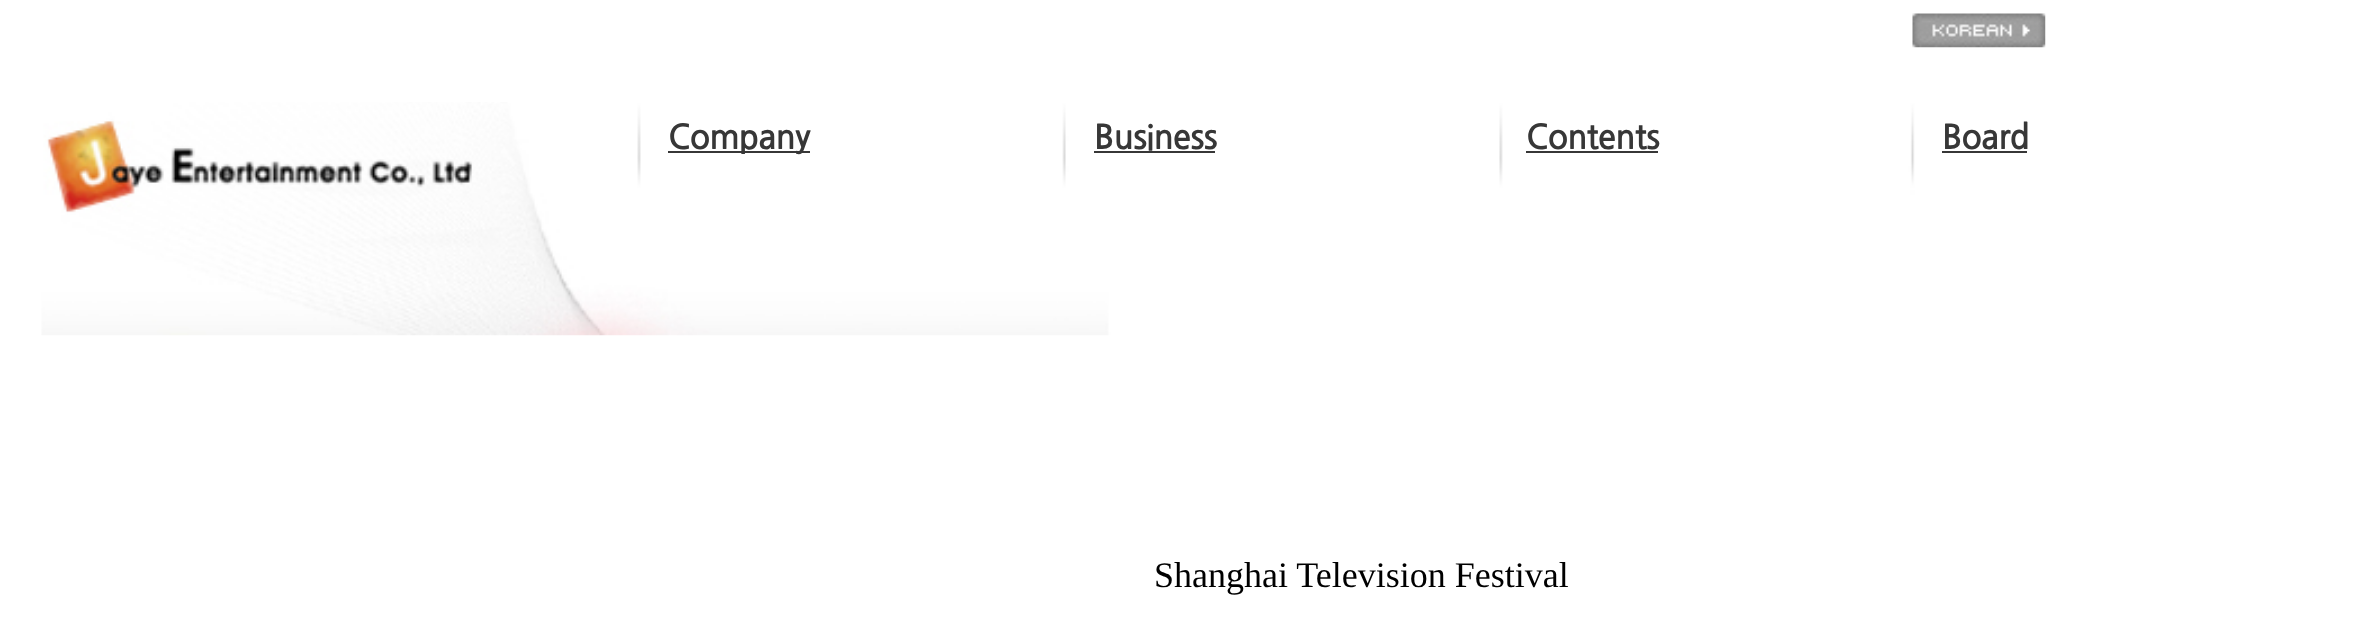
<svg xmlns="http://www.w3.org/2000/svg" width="2356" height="626">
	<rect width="100%" height="100%" fill="#FFFFFF" />
	<image x="1912" y="13" width="134" height="35" href="assets/img1.png" />
	<image x="41" y="102" width="1874" height="234" href="assets/img2.png" />
	<rect x="668" y="151" width="142" height="2" fill="#373737" />
	<g font-family="NanumGothic" font-size="33.75" font-weight="700" letter-spacing="-1" fill="#373737">
		<text x="668" y="149">Company</text>
		<text x="1094" y="149">Business</text>
	</g>
	<rect x="1094" y="151" width="121" height="2" fill="#373737" />
	<text x="1526" y="149" font-family="NanumGothic" font-size="33.75" font-weight="700" letter-spacing="-1" fill="#373737">Contents</text>
	<rect x="1526" y="151" width="132" height="2" fill="#373737" />
	<text x="1942" y="149" font-family="NanumGothic" font-size="33.75" font-weight="700" letter-spacing="-1" fill="#373737">Board</text>
	<rect x="1942" y="151" width="85" height="2" fill="#373737" />
	<text x="1154" y="587" font-family="Liberation Serif" font-size="36" fill="#000000">Shanghai Television Festival</text>
</svg>
